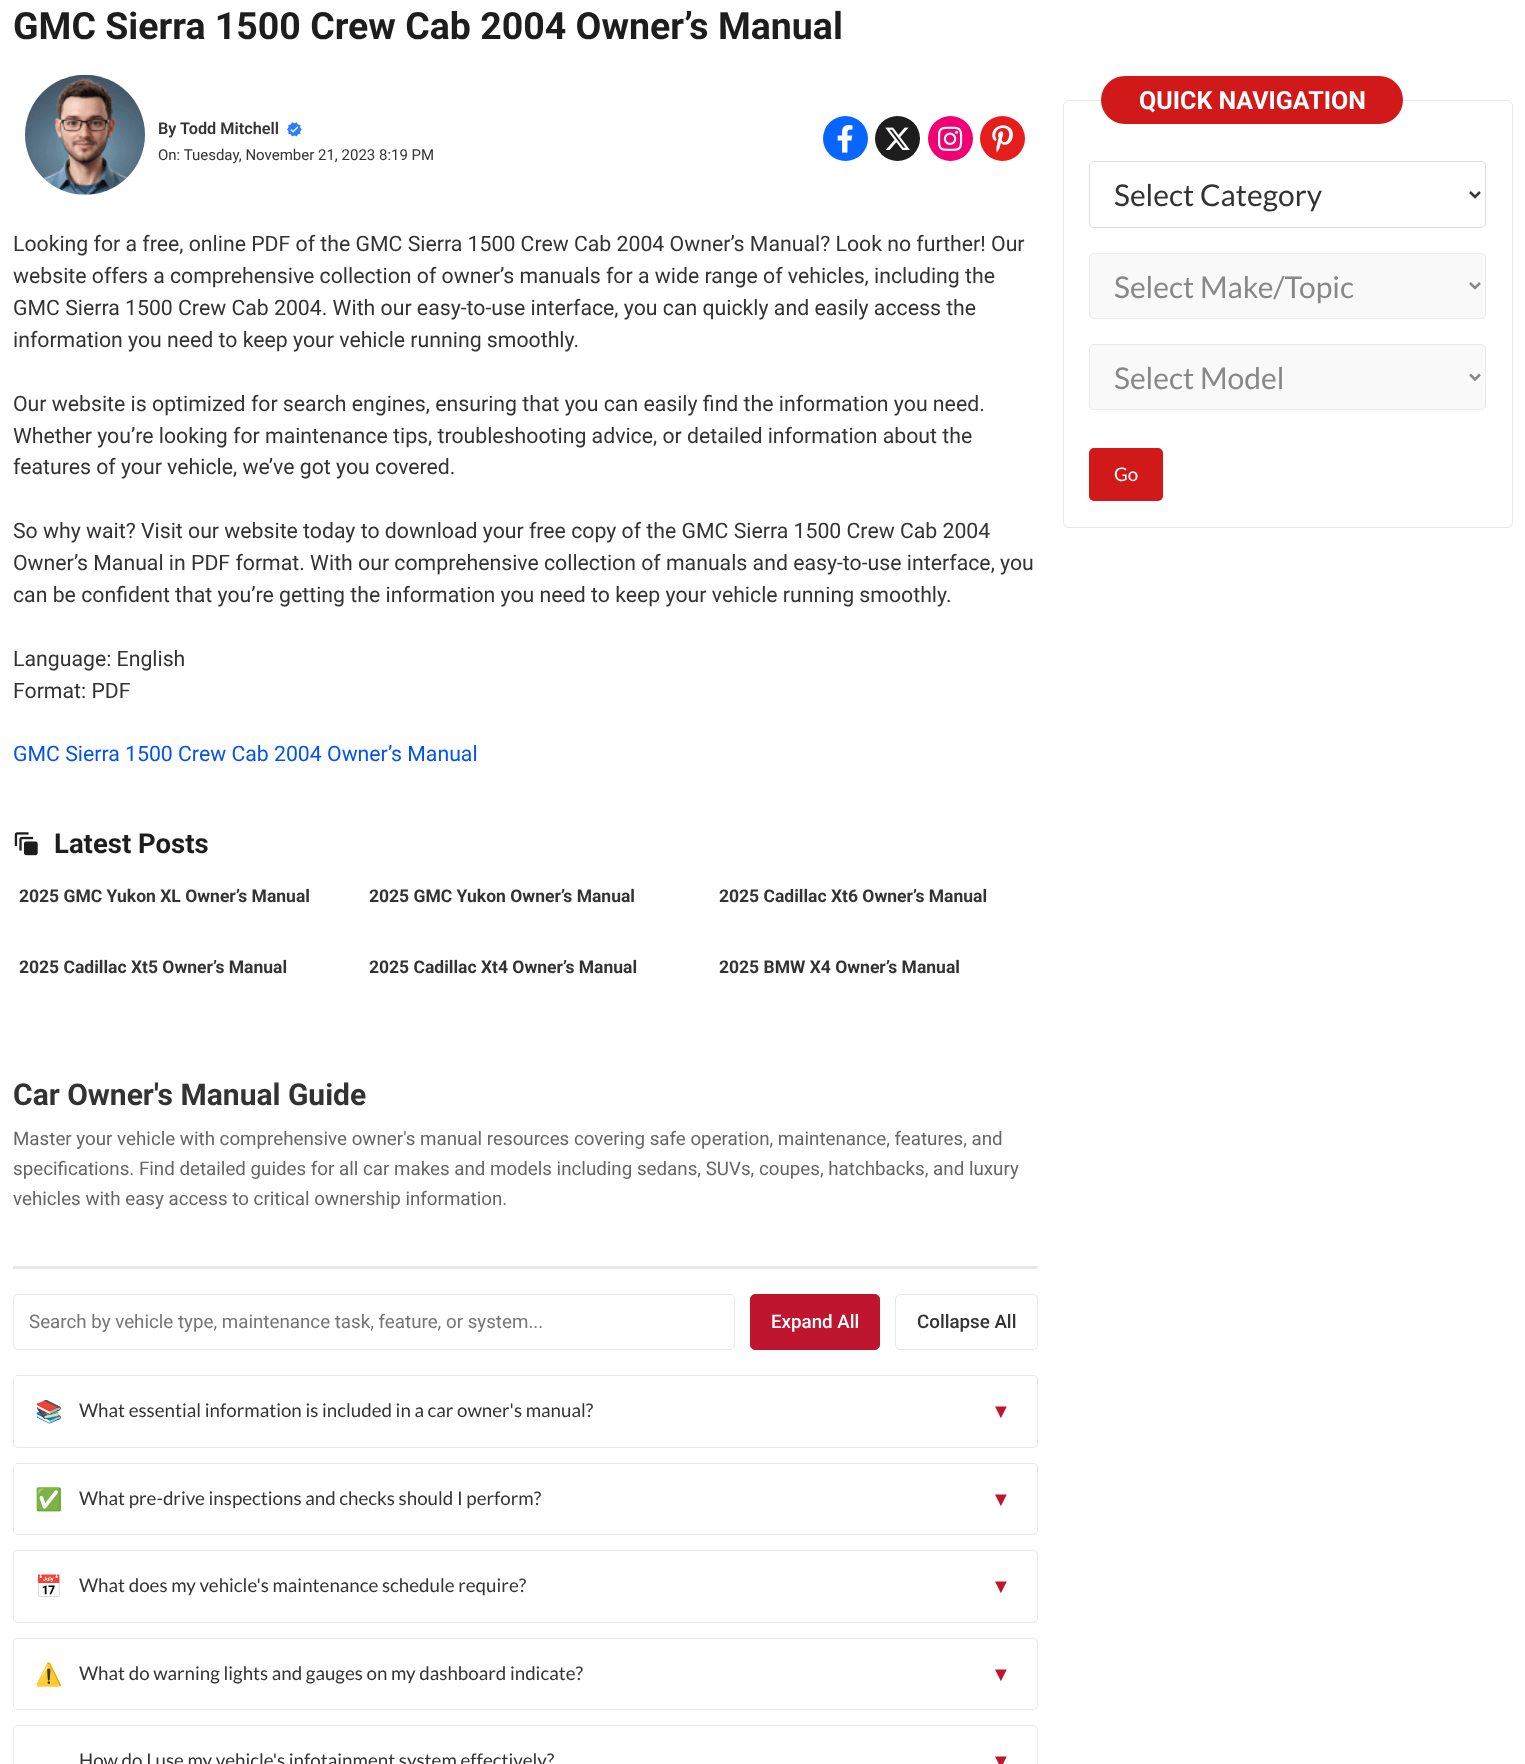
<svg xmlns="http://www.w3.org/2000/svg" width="1525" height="1764">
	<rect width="100%" height="100%" fill="#FFFFFF" />
	<text x="13" y="39" font-family="Roboto" font-size="37.5" font-weight="700" fill="#1D1D1D">GMC Sierra 1500 Crew Cab 2004 Owner’s Manual</text>
	<image x="25" y="74" width="120" height="121" href="assets/img1.png" />
	<text x="158" y="134" font-family="Roboto" font-size="16.25" font-weight="600" fill="#333333">By Todd Mitchell</text>
	<image x="287" y="122" width="15" height="15" href="assets/img2.png" />
	<text x="158" y="160" font-family="Roboto" font-size="15" fill="#333333">On: Tuesday, November 21, 2023 8:19 PM</text>
	<circle cx="845.5" cy="138.5" r="22.5" fill="#0866FF" />
	<image x="837" y="125" width="16" height="28" href="assets/img3.png" />
	<circle cx="897.5" cy="138.5" r="22.5" fill="#1D1D1D" />
	<image x="885" y="127" width="25" height="23" href="assets/img4.png" />
	<circle cx="950.5" cy="138.5" r="22.5" fill="#F00074" />
	<image x="937" y="126" width="26" height="25" href="assets/img5.png" />
	<circle cx="1002.5" cy="138.5" r="22.5" fill="#E61D1D" />
	<image x="992" y="125" width="21" height="28" href="assets/img6.png" />
	<g font-family="Roboto" font-size="21.25" fill="#333333">
		<text x="13" y="251">Looking for a free, online PDF of the GMC Sierra 1500 Crew Cab 2004 Owner’s Manual? Look no further! Our</text>
		<text x="13" y="283">website offers a comprehensive collection of owner’s manuals for a wide range of vehicles, including the</text>
		<text x="13" y="315">GMC Sierra 1500 Crew Cab 2004. With our easy-to-use interface, you can quickly and easily access the</text>
		<text x="13" y="347">information you need to keep your vehicle running smoothly.</text>
		<text x="13" y="411">Our website is optimized for search engines, ensuring that you can easily find the information you need.</text>
		<text x="13" y="443">Whether you’re looking for maintenance tips, troubleshooting advice, or detailed information about the</text>
		<text x="13" y="474">features of your vehicle, we’ve got you covered.</text>
		<text x="13" y="538">So why wait? Visit our website today to download your free copy of the GMC Sierra 1500 Crew Cab 2004</text>
		<text x="13" y="570">Owner’s Manual in PDF format. With our comprehensive collection of manuals and easy-to-use interface, you</text>
		<text x="13" y="602">can be confident that you’re getting the information you need to keep your vehicle running smoothly.</text>
		<text x="13" y="666">Language: English</text>
		<text x="13" y="698">Format: PDF</text>
	</g>
	<text x="13" y="761" font-family="Roboto" font-size="21.25" fill="#0553EF">GMC Sierra 1500 Crew Cab 2004 Owner’s Manual</text>
	<image x="14" y="832" width="24" height="24" href="assets/img7.png" />
	<text x="54" y="853" font-family="Roboto" font-size="27.5" font-weight="700" fill="#1D1D1D">Latest Posts</text>
	<g font-family="Roboto" font-size="17.5" font-weight="700" fill="#333333">
		<text x="19" y="902">2025 GMC Yukon XL Owner’s Manual</text>
		<text x="369" y="902">2025 GMC Yukon Owner’s Manual</text>
		<text x="719" y="902">2025 Cadillac Xt6 Owner’s Manual</text>
		<text x="19" y="973">2025 Cadillac Xt5 Owner’s Manual</text>
		<text x="369" y="973">2025 Cadillac Xt4 Owner’s Manual</text>
		<text x="719" y="973">2025 BMW X4 Owner’s Manual</text>
	</g>
	<rect x="13" y="1266" width="1025" height="3" fill="#E8E8E8" />
	<text x="13" y="1105" font-family="Roboto" font-size="30" font-weight="700" fill="#333333">Car Owner's Manual Guide</text>
	<g font-family="Roboto" font-size="18.75" fill="#666666">
		<text x="13" y="1145">Master your vehicle with comprehensive owner's manual resources covering safe operation, maintenance, features, and</text>
		<text x="13" y="1175">specifications. Find detailed guides for all car makes and models including sedans, SUVs, coupes, hatchbacks, and luxury</text>
		<text x="13" y="1205">vehicles with easy access to critical ownership information.</text>
	</g>
	<rect x="13.5" y="1294.5" width="721" height="55" rx="4.5" fill="none" stroke="#E8E8E8" />
	<text x="29" y="1328" font-family="Roboto" font-size="18.75" fill="#757575">Search by vehicle type, maintenance task, feature, or system...</text>
	<rect x="750.5" y="1294.5" width="129" height="55" rx="4.5" fill="#C0152F" stroke="#C0152F" />
	<text x="771" y="1328" font-family="Roboto" font-size="18.75" font-weight="500" fill="#FFFFFF">Expand All</text>
	<rect x="895.5" y="1294.5" width="142" height="55" rx="4.5" fill="none" stroke="#E8E8E8" />
	<text x="917" y="1328" font-family="Roboto" font-size="18.75" font-weight="500" fill="#333333">Collapse All</text>
	<rect x="13.5" y="1375.5" width="1024" height="72" rx="4.5" fill="none" stroke="#E8E8E8" />
	<rect x="14" y="1376" width="1022" height="70" rx="4" fill="#FFFFFF" />
	<text x="35" y="1419" font-family="Noto Color Emoji" font-size="22" fill="#333333">📚</text>
	<text x="79" y="1417" font-family="Lato" font-size="18.75" fill="#333333">What essential information is included in a car owner's manual?</text>
	<text x="991" y="1418" font-family="Liberation Serif" font-size="20" fill="#C0152F">▼</text>
	<rect x="13.5" y="1463.5" width="1024" height="71" rx="4.5" fill="none" stroke="#E8E8E8" />
	<rect x="14" y="1464" width="1022" height="70" rx="4" fill="#FFFFFF" />
	<text x="35" y="1507" font-family="Noto Color Emoji" font-size="22" fill="#333333">✅</text>
	<text x="79" y="1505" font-family="Lato" font-size="18.75" fill="#333333">What pre-drive inspections and checks should I perform?</text>
	<text x="991" y="1506" font-family="Liberation Serif" font-size="20" fill="#C0152F">▼</text>
	<rect x="13.5" y="1550.5" width="1024" height="72" rx="4.5" fill="none" stroke="#E8E8E8" />
	<rect x="14" y="1551" width="1022" height="70" rx="4" fill="#FFFFFF" />
	<text x="35" y="1594" font-family="Noto Color Emoji" font-size="22" fill="#333333">📅</text>
	<text x="79" y="1592" font-family="Lato" font-size="18.75" fill="#333333">What does my vehicle's maintenance schedule require?</text>
	<text x="991" y="1593" font-family="Liberation Serif" font-size="20" fill="#C0152F">▼</text>
	<rect x="13.5" y="1638.5" width="1024" height="71" rx="4.5" fill="none" stroke="#E8E8E8" />
	<rect x="14" y="1639" width="1022" height="70" rx="4" fill="#FFFFFF" />
	<text x="35" y="1682" font-family="Noto Color Emoji" font-size="22" fill="#333333">⚠️</text>
	<text x="79" y="1680" font-family="Lato" font-size="18.75" fill="#333333">What do warning lights and gauges on my dashboard indicate?</text>
	<text x="991" y="1681" font-family="Liberation Serif" font-size="20" fill="#C0152F">▼</text>
	<rect x="13.5" y="1725.5" width="1024" height="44" rx="4.5" fill="none" stroke="#E8E8E8" />
	<rect x="14" y="1726" width="1022" height="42" rx="4" fill="#FFFFFF" />
	<text x="79" y="1767" font-family="Lato" font-size="18.75" fill="#333333">How do I use my vehicle's infotainment system effectively?</text>
	<text x="991" y="1768" font-family="Liberation Serif" font-size="20" fill="#C0152F">▼</text>
	<rect x="1063.5" y="100.5" width="449" height="427" rx="5.5" fill="none" stroke="#E9E9E9" />
	<rect x="1101" y="76" width="302" height="48" rx="24" fill="#D11919" />
	<text x="1139" y="109" font-family="Roboto" font-size="25" font-weight="700" fill="#FFFFFF">QUICK NAVIGATION</text>
	<rect x="1089.5" y="161.5" width="396" height="66" rx="4.5" fill="none" stroke="#DDDDDD" />
	<path d="M1470 192L1475 197L1480 192" fill="none" stroke="#383838" stroke-width="2.5" />
	<text x="1114" y="206" font-family="Lato" font-size="30" fill="#333333">Select Category</text>
	<rect x="1089.5" y="253.5" width="396" height="65" rx="4.5" fill="#F9F9F9" stroke="#EBEBEB" />
	<path d="M1470 283L1475 288L1480 283" fill="none" stroke="#888888" stroke-width="2.5" />
	<text x="1114" y="298" font-family="Lato" font-size="30" fill="#888888">Select Make/Topic</text>
	<rect x="1089.5" y="344.5" width="396" height="65" rx="4.5" fill="#F9F9F9" stroke="#EBEBEB" />
	<path d="M1470 374.5L1475 379.5L1480 374.5" fill="none" stroke="#888888" stroke-width="2.5" />
	<text x="1114" y="389" font-family="Lato" font-size="30" fill="#888888">Select Model</text>
	<rect x="1089" y="448" width="74" height="53" rx="5" fill="#D11919" />
	<text x="1114" y="481" font-family="Lato" font-size="18.75" fill="#FFFFFF">Go</text>
</svg>
